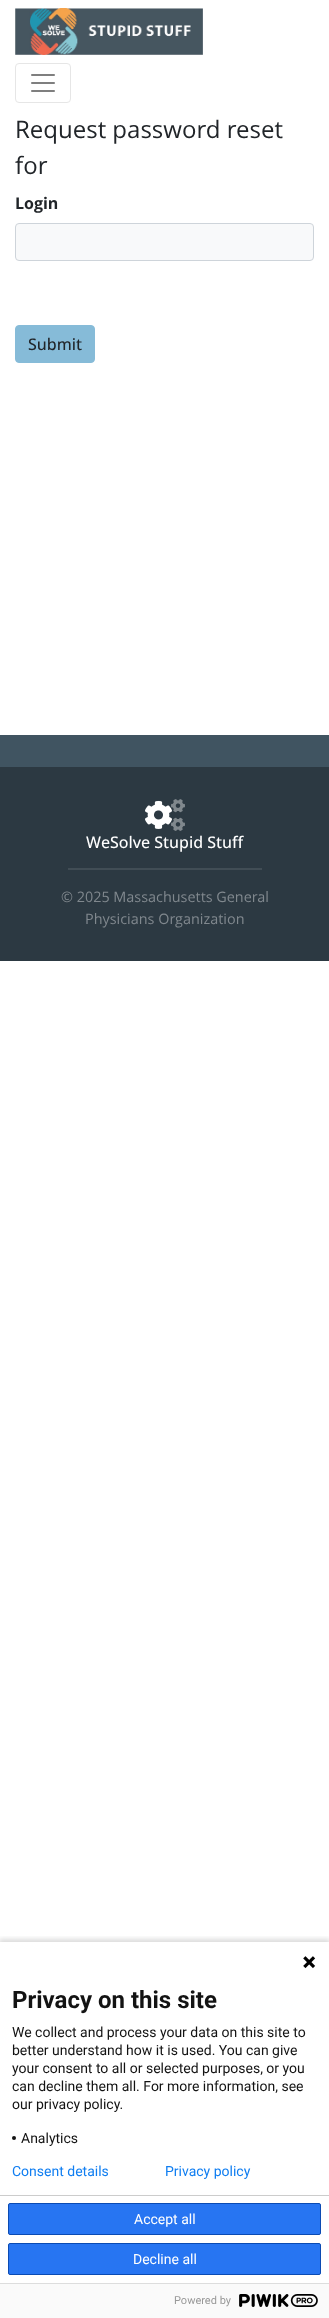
<svg xmlns="http://www.w3.org/2000/svg" width="329" height="2318">
	<defs>
		<clipPath id="clip1"><rect x="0" y="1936" width="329" height="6" /></clipPath>
	</defs>
	<rect width="100%" height="100%" fill="#FFFFFF" />
	<image x="15" y="8" width="188" height="47" href="assets/img1.png" />
	<rect x="15.5" y="63.5" width="55" height="39" rx="3.5" fill="none" stroke="#E6E6E6" />
	<image x="31" y="74" width="24" height="18" href="assets/img2.png" />
	<g font-family="Open Sans" font-size="24" fill="#212529">
		<text x="15" y="138">Request password reset</text>
		<text x="15" y="174">for</text>
	</g>
	<text x="15" y="209" font-family="Open Sans" font-size="16" font-weight="700" fill="#212529">Login</text>
	<rect x="15.5" y="223.5" width="298" height="37" rx="3.5" fill="#F8F9FA" stroke="#CED4DA" />
	<rect x="15.5" y="325.5" width="79" height="37" rx="3.5" fill="#86BBD8" stroke="#86BBD8" />
	<text x="28" y="350" font-family="Open Sans" font-size="16" font-weight="500" fill="#212529">Submit</text>
	<rect x="0" y="767" width="329" height="194" fill="#2C3942" />
	<rect x="0" y="735" width="329" height="32" fill="#405461" />
	<image x="145" y="799" width="40" height="32" href="assets/img3.png" />
	<text x="86" y="848" font-family="Open Sans" font-size="16" font-weight="500" fill="#FFFFFF">WeSolve Stupid Stuff</text>
	<rect x="68" y="868" width="194" height="2" fill="#414D55" />
	<g font-family="Open Sans" font-size="14.4" fill="#80888E">
		<text x="61" y="902">© 2025 Massachusetts General</text>
		<text x="85" y="924">Physicians Organization</text>
	</g>
	<g clip-path="url(#clip1)">
		<rect x="-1" y="1939" width="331" height="378" fill="#000000" fill-opacity="0.14" filter="blur(2.5px)" />
	</g>
	<image x="303" y="1956" width="13" height="13" href="assets/img4.png" />
	<text x="12" y="2008" font-family="Roboto" font-size="24" font-weight="700" fill="#131313">Privacy on this site</text>
	<g font-family="Roboto" font-size="14" fill="#131313">
		<text x="12" y="2037">We collect and process your data on this site to</text>
		<text x="12" y="2055">better understand how it is used. You can give</text>
		<text x="12" y="2073">your consent to all or selected purposes, or you</text>
		<text x="12" y="2091">can decline them all. For more information, see</text>
		<text x="12" y="2109">our privacy policy.</text>
	</g>
	<circle cx="14" cy="2138" r="2" fill="#131313" />
	<text x="21" y="2143" font-family="Roboto" font-size="14" fill="#131313">Analytics</text>
	<rect x="0" y="2195" width="329" height="1" fill="#CCCCCC" />
	<rect x="8.5" y="2203.5" width="312" height="31" rx="1.5" fill="#2775F2" stroke="#0B4BB3" />
	<text x="134" y="2224" font-family="Roboto" font-size="14" fill="#FFFFFF">Accept all</text>
	<rect x="8.5" y="2243.5" width="312" height="31" rx="1.5" fill="#2775F2" stroke="#0B4BB3" />
	<text x="133" y="2264" font-family="Roboto" font-size="14" fill="#FFFFFF">Decline all</text>
	<g font-family="Roboto" font-size="14" fill="#107EF1">
		<text x="12" y="2176">Consent details</text>
		<text x="165" y="2176">Privacy policy</text>
	</g>
	<rect x="0" y="2284" width="329" height="34" fill="#FAFAFA" />
	<rect x="0" y="2283" width="329" height="1" fill="#DDDDDD" />
	<text x="174" y="2304" font-family="Roboto" font-size="11" fill="#999999">Powered by</text>
	<image x="239" y="2294" width="79" height="13" href="assets/img5.png" />
</svg>
